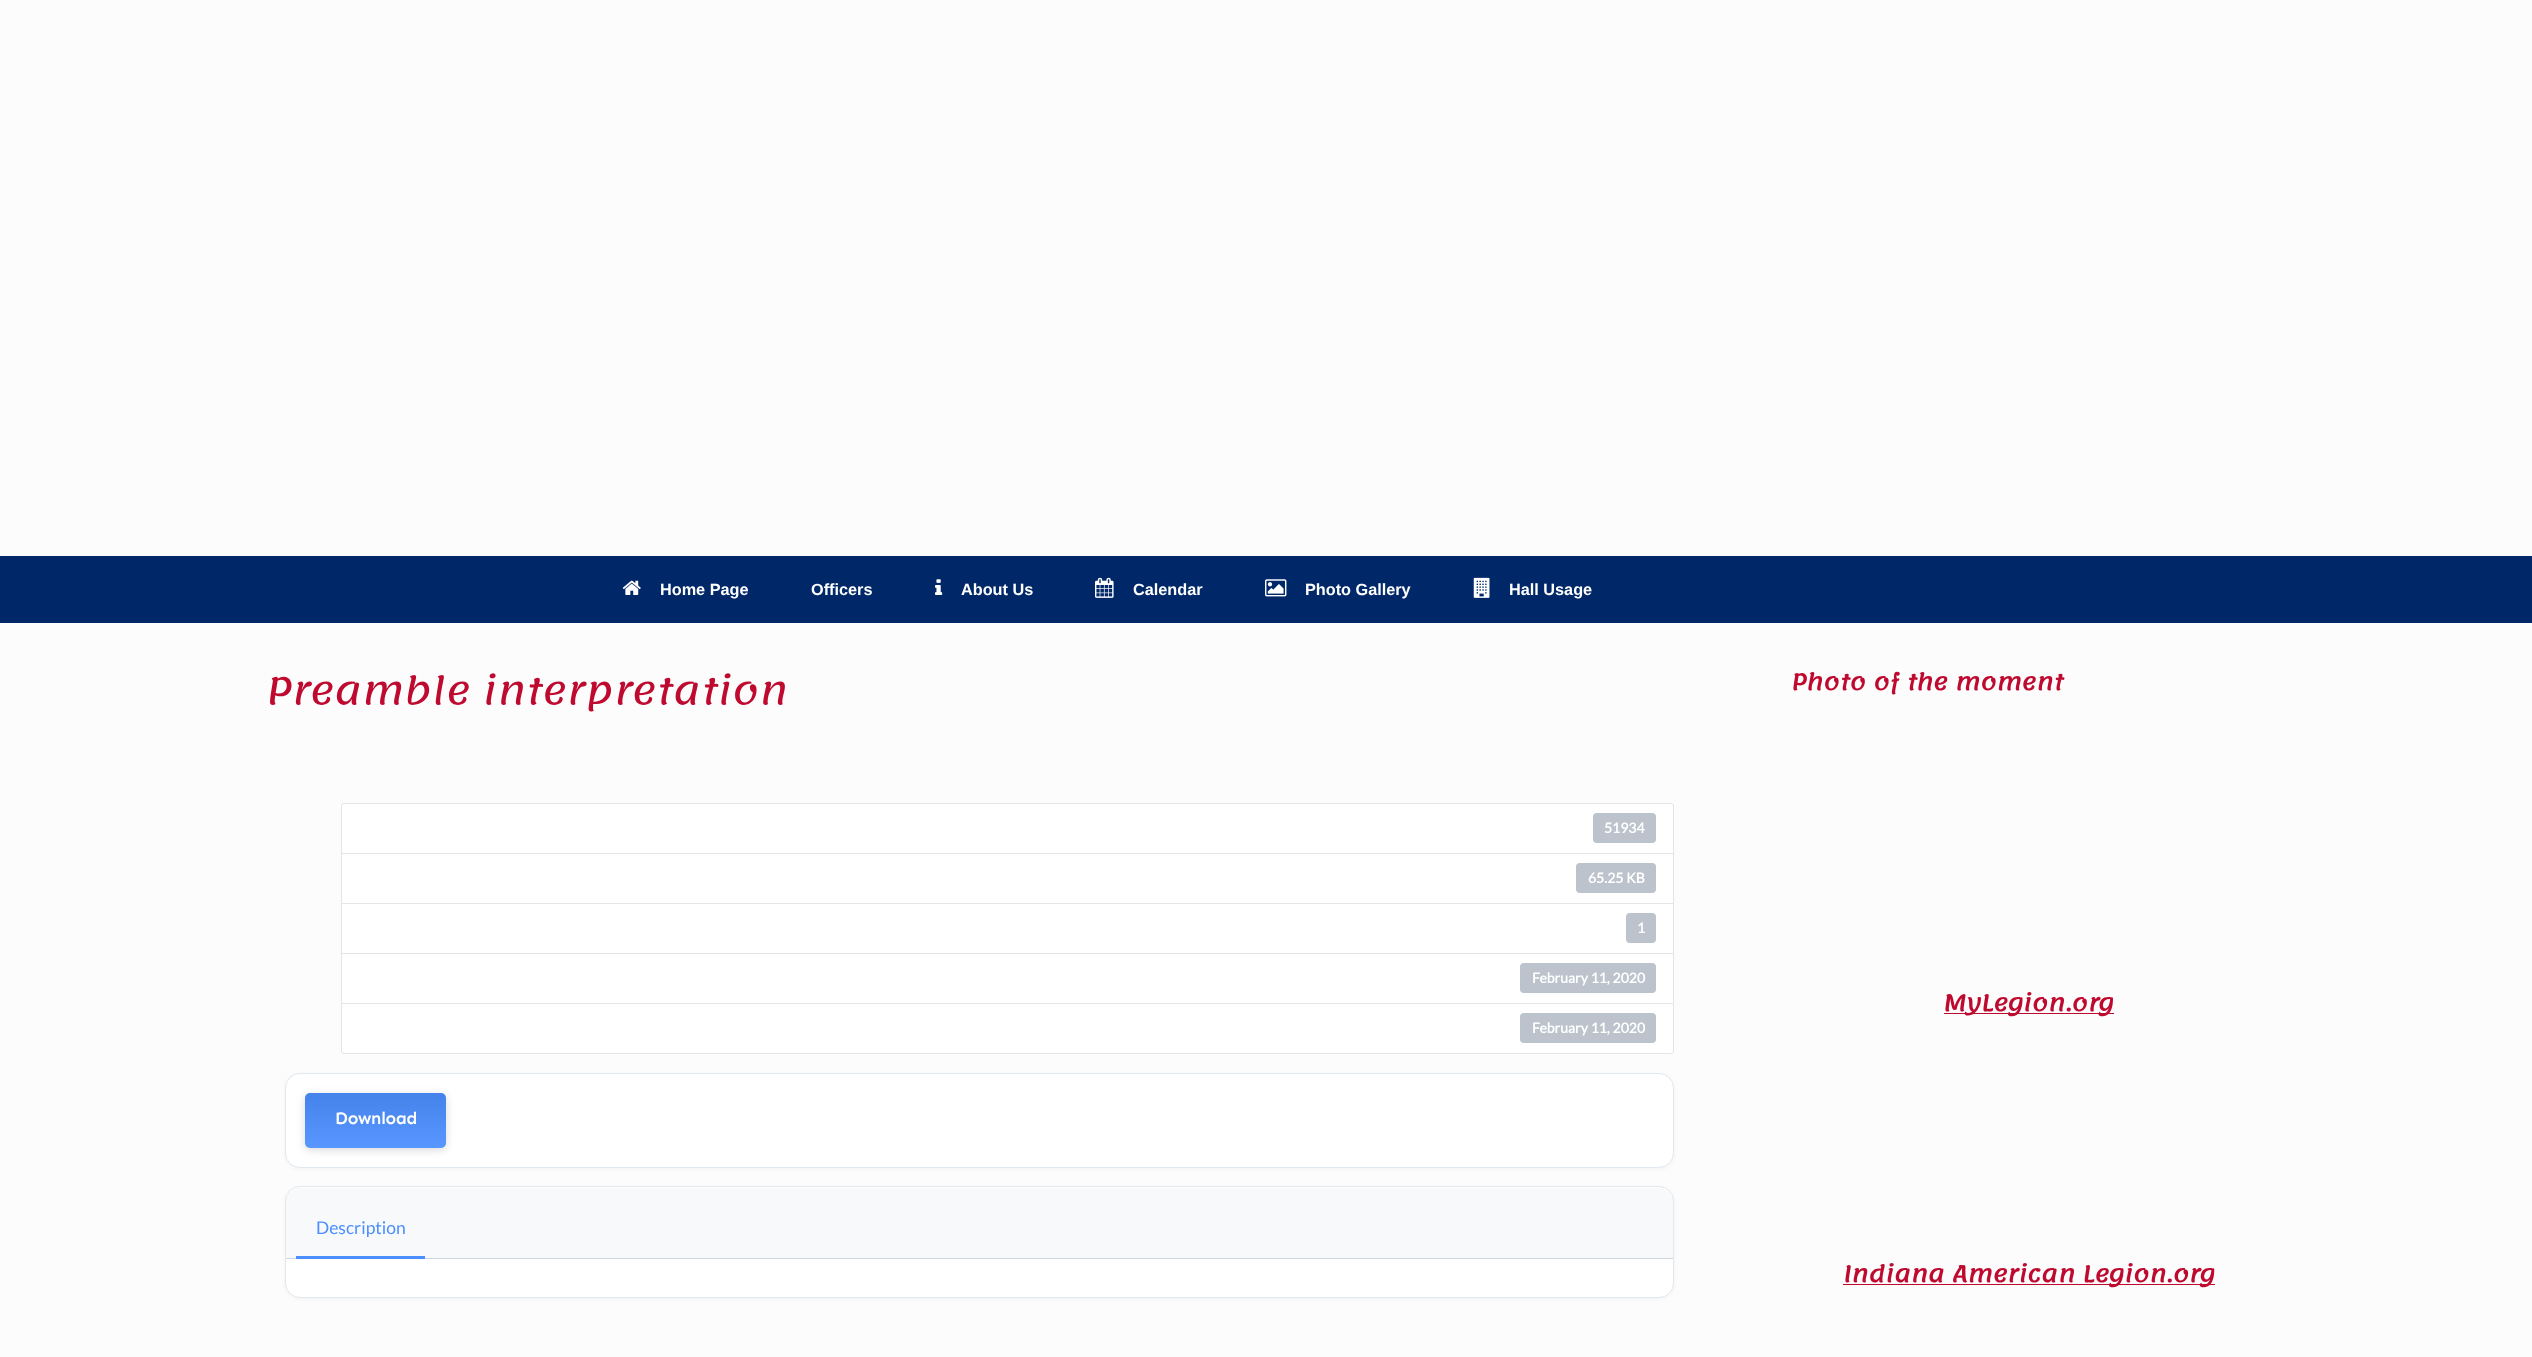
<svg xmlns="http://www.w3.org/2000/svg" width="2532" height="1357">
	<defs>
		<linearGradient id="g1" gradientUnits="userSpaceOnUse" x1="376" y1="1093" x2="376" y2="1148"><stop offset="0" stop-color="#000000" stop-opacity="0.08" /><stop offset="1" stop-color="#FFFFFF" stop-opacity="0.08" /></linearGradient>
	</defs>
	<rect width="100%" height="100%" fill="#FCFCFC" />
	<rect x="0" y="556" width="2532" height="67" fill="#002868" />
	<image x="622" y="580" width="19" height="15" href="assets/img1.png" />
	<g font-family="Liberation Sans" font-size="16.25" font-weight="700" fill="#FFFFFF">
		<text x="660" y="595">Home Page</text>
		<text x="811" y="595">Officers</text>
	</g>
	<image x="935" y="579" width="8" height="16" href="assets/img2.png" />
	<text x="961" y="595" font-family="Liberation Sans" font-size="16.25" font-weight="700" fill="#FFFFFF">About Us</text>
	<image x="1095" y="577" width="19" height="21" href="assets/img3.png" />
	<text x="1133" y="595" font-family="Liberation Sans" font-size="16.25" font-weight="700" fill="#FFFFFF">Calendar</text>
	<image x="1265" y="579" width="22" height="18" href="assets/img4.png" />
	<text x="1305" y="595" font-family="Liberation Sans" font-size="16.25" font-weight="700" fill="#FFFFFF">Photo Gallery</text>
	<image x="1473" y="577" width="17" height="21" href="assets/img5.png" />
	<text x="1509" y="595" font-family="Liberation Sans" font-size="16.25" font-weight="700" fill="#FFFFFF">Hall Usage</text>
	<text x="266" y="704" font-family="Lemonada" font-size="37.5" fill="#BF0A30">Preamble interpretation</text>
	<path d="M344 803.5H1671C1672.5 803.5 1673.5 804.5 1673.5 806V853.5H341.5V806C341.5 804.5 342.5 803.5 344 803.5Z" fill="#FFFFFF" stroke="#E5E5E5" />
	<rect x="1593" y="813" width="63" height="30" rx="4" fill="#BCC3CC" />
	<text x="1604" y="833" font-family="Lato" font-size="14" font-weight="700" fill="#FFFFFF">51934</text>
	<rect x="341.5" y="853.5" width="1332" height="50" fill="#FFFFFF" stroke="#E5E5E5" />
	<rect x="1576" y="863" width="80" height="30" rx="4" fill="#BCC3CC" />
	<text x="1588" y="883" font-family="Lato" font-size="14" font-weight="700" fill="#FFFFFF">65.25 KB</text>
	<rect x="341.5" y="903.5" width="1332" height="50" fill="#FFFFFF" stroke="#E5E5E5" />
	<rect x="1626" y="913" width="30" height="30" rx="4" fill="#BCC3CC" />
	<text x="1637" y="933" font-family="Lato" font-size="14" font-weight="700" fill="#FFFFFF">1</text>
	<rect x="341.5" y="953.5" width="1332" height="50" fill="#FFFFFF" stroke="#E5E5E5" />
	<rect x="1520" y="963" width="136" height="30" rx="4" fill="#BCC3CC" />
	<text x="1532" y="983" font-family="Lato" font-size="14" font-weight="700" fill="#FFFFFF">February 11, 2020</text>
	<path d="M341.5 1003.5H1673.5V1051C1673.5 1052.5 1672.5 1053.5 1671 1053.5H344C342.5 1053.5 341.5 1052.5 341.5 1051Z" fill="#FFFFFF" stroke="#E5E5E5" />
	<rect x="1520" y="1013" width="136" height="30" rx="4" fill="#BCC3CC" />
	<text x="1532" y="1033" font-family="Lato" font-size="14" font-weight="700" fill="#FFFFFF">February 11, 2020</text>
	<rect x="285" y="1074" width="1389" height="95" rx="15" fill="#000000" fill-opacity="0.04" filter="blur(2px)" />
	<rect x="285.5" y="1073.5" width="1388" height="94" rx="14.5" fill="#FFFFFF" stroke="#E2E8F0" />
	<rect x="305" y="1095" width="141" height="55" rx="5" fill="#000000" fill-opacity="0.15" filter="blur(4px)" />
	<rect x="305" y="1093" width="141" height="55" rx="5" fill="#4A8EFF" />
	<rect x="305" y="1093" width="141" height="55" rx="5" fill="url(#g1)" />
	<text x="335" y="1124" font-family="Sen" font-size="17.5" font-weight="600" letter-spacing="-0.25" fill="#FFFFFF">Download</text>
	<rect x="285" y="1188" width="1389" height="111" rx="15" fill="#000000" fill-opacity="0.04" filter="blur(2px)" />
	<rect x="285.5" y="1186.5" width="1388" height="111" rx="14.5" fill="#FFFFFF" stroke="#E2E8F0" />
	<path d="M300 1188H1659C1666.5 1188 1673 1194.5 1673 1202V1259H286V1202C286 1194.5 292.5 1188 300 1188Z" fill="#CBD0D6" fill-opacity="0.13" />
	<rect x="286" y="1258" width="1387" height="1" fill="#D0D4DC" />
	<text x="316" y="1234" font-family="Lato" font-size="17.5" fill="#4A8EFF">Description</text>
	<rect x="296" y="1256" width="129" height="3" fill="#4A8EFF" />
	<text x="1791" y="690" font-family="Lemonada" font-size="22.5" font-weight="700" fill="#BF0A30">Photo of the moment</text>
	<rect x="1944" y="1013" width="170" height="1" fill="#BF0A30" />
	<text x="1943" y="1011" font-family="Lemonada" font-size="22.5" font-weight="700" fill="#BF0A30">MyLegion.org</text>
	<rect x="1843" y="1284" width="372" height="1" fill="#BF0A30" />
	<text x="1843" y="1282" font-family="Lemonada" font-size="22.5" font-weight="700" fill="#BF0A30">Indiana American Legion.org</text>
</svg>
